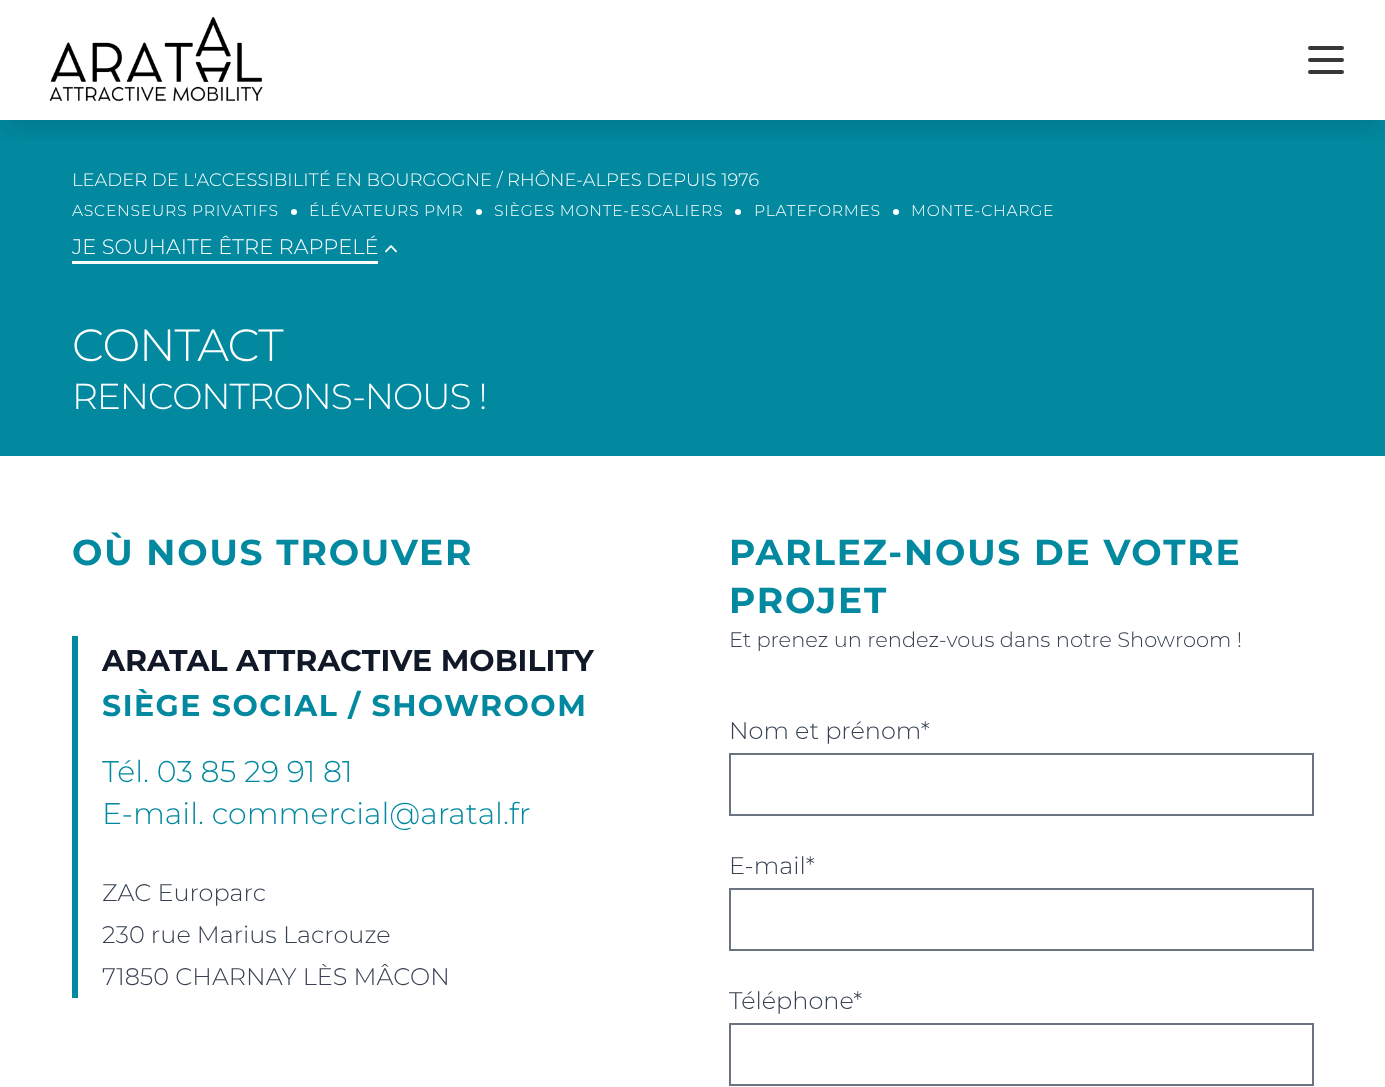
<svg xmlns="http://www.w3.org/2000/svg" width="1385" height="1087">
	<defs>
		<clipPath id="clip1"><rect x="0" y="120" width="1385" height="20" /></clipPath>
	</defs>
	<rect width="100%" height="100%" fill="#FFFFFF" />
	<rect x="0" y="120" width="1385" height="336" fill="#0289A0" />
	<g clip-path="url(#clip1)">
		<rect x="5" y="20" width="1377" height="111" fill="#000000" fill-opacity="0.1" filter="blur(11px)" />
	</g>
	<image x="49" y="17" width="214" height="85" href="assets/img1.png" />
	<path d="M1310 48H1342M1310 60H1342M1310 72H1342" fill="none" stroke="#383838" stroke-width="4" stroke-linecap="round" stroke-linejoin="round" />
	<text x="72" y="186" font-family="Montserrat" font-size="18" font-weight="300" fill="#FFFFFF">LEADER DE L'ACCESSIBILITÉ EN BOURGOGNE / RHÔNE-ALPES DEPUIS 1976</text>
	<text x="72" y="216" font-family="Montserrat" font-size="15.6" font-weight="300" letter-spacing="0.75" fill="#FFFFFF">ASCENSEURS PRIVATIFS</text>
	<circle cx="294" cy="212" r="3" fill="#FFFFFF" />
	<text x="309" y="216" font-family="Montserrat" font-size="15.6" font-weight="300" letter-spacing="0.75" fill="#FFFFFF">ÉLÉVATEURS PMR</text>
	<circle cx="479" cy="212" r="3" fill="#FFFFFF" />
	<text x="494" y="216" font-family="Montserrat" font-size="15.6" font-weight="300" letter-spacing="0.75" fill="#FFFFFF">SIÈGES MONTE-ESCALIERS</text>
	<circle cx="738" cy="212" r="3" fill="#FFFFFF" />
	<text x="754" y="216" font-family="Montserrat" font-size="15.6" font-weight="300" letter-spacing="0.75" fill="#FFFFFF">PLATEFORMES</text>
	<circle cx="896" cy="212" r="3" fill="#FFFFFF" />
	<text x="911" y="216" font-family="Montserrat" font-size="15.6" font-weight="300" letter-spacing="0.75" fill="#FFFFFF">MONTE-CHARGE</text>
	<rect x="72" y="261" width="306" height="3" fill="#FFFFFF" />
	<text x="72" y="254" font-family="Montserrat" font-size="21" font-weight="300" fill="#FFFFFF">JE SOUHAITE ÊTRE RAPPELÉ</text>
	<image x="385" y="245" width="12" height="8" href="assets/img2.png" />
	<text x="72" y="361" font-family="Montserrat" font-size="45" font-weight="300" letter-spacing="-1.1" fill="#FFFFFF">CONTACT</text>
	<text x="72" y="409" font-family="Montserrat" font-size="36" font-weight="300" letter-spacing="-1.1" fill="#FFFFFF">RENCONTRONS-NOUS !</text>
	<text x="72" y="565" font-family="Montserrat" font-size="36" font-weight="700" letter-spacing="1.8" fill="#0289A0">OÙ NOUS TROUVER</text>
	<rect x="72" y="636" width="6" height="362" fill="#0289A0" />
	<text x="102" y="671" font-family="Montserrat" font-size="30" font-weight="700" fill="#111827">ARATAL ATTRACTIVE MOBILITY</text>
	<text x="102" y="716" font-family="Montserrat" font-size="30" font-weight="700" letter-spacing="1.5" fill="#0289A0">SIÈGE SOCIAL / SHOWROOM</text>
	<g font-family="Montserrat" font-size="30" font-weight="300" fill="#0289A0">
		<text x="102" y="782">Tél. 03 85 29 91 81</text>
		<text x="102" y="824">E-mail. commercial@aratal.fr</text>
	</g>
	<g font-family="Montserrat" font-size="24" font-weight="300" fill="#374151">
		<text x="102" y="901">ZAC Europarc</text>
		<text x="102" y="943">230 rue Marius Lacrouze</text>
		<text x="102" y="985">71850 CHARNAY LÈS MÂCON</text>
	</g>
	<g font-family="Montserrat" font-size="36" font-weight="700" letter-spacing="1.8" fill="#0289A0">
		<text x="729" y="565">PARLEZ-NOUS DE VOTRE</text>
		<text x="729" y="613">PROJET</text>
	</g>
	<text x="729" y="647" font-family="Montserrat" font-size="21" font-weight="300" fill="#374151">Et prenez un rendez-vous dans notre Showroom !</text>
	<text x="729" y="739" font-family="Montserrat" font-size="24" font-weight="300" fill="#374151">Nom et prénom*</text>
	<rect x="730" y="754" width="583" height="61" fill="none" stroke="#6B7280" stroke-width="2" />
	<text x="729" y="874" font-family="Montserrat" font-size="24" font-weight="300" fill="#374151">E-mail*</text>
	<rect x="730" y="889" width="583" height="61" fill="none" stroke="#6B7280" stroke-width="2" />
	<text x="729" y="1009" font-family="Montserrat" font-size="24" font-weight="300" fill="#374151">Téléphone*</text>
	<rect x="730" y="1024" width="583" height="61" fill="none" stroke="#6B7280" stroke-width="2" />
</svg>
